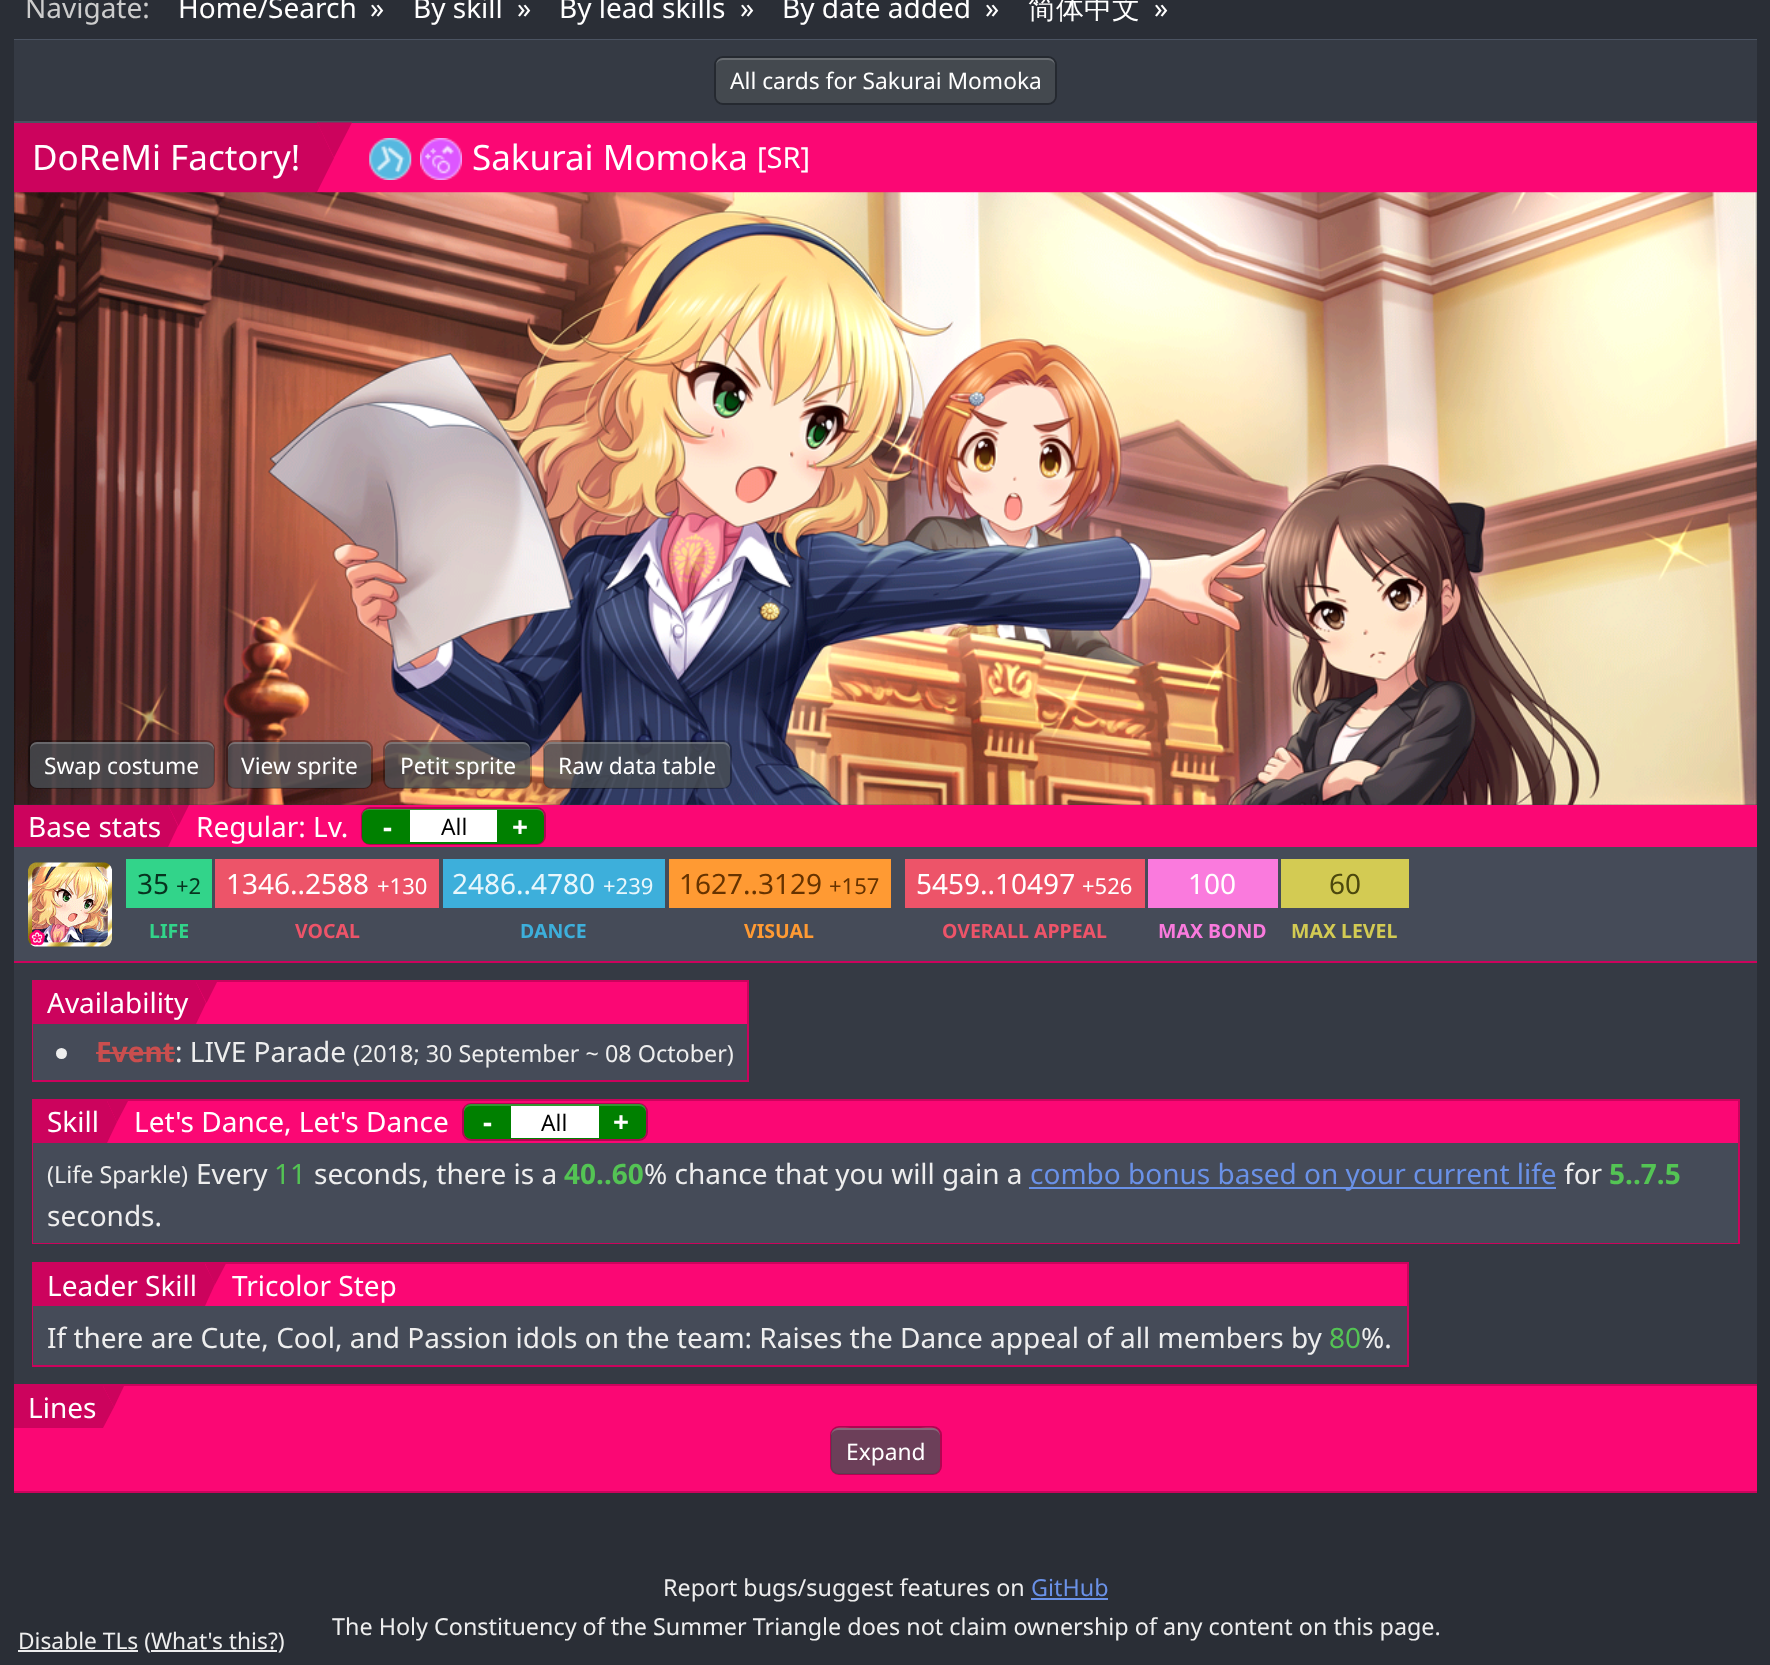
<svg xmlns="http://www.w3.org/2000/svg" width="1770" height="1665">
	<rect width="100%" height="100%" fill="#2A2E36" />
	<text x="25" y="18" font-family="Noto Sans" font-size="28" fill="#CCCCCC">Navigate:</text>
	<g font-family="Noto Sans" font-size="28" fill="#FFFFFF">
		<text x="178" y="18">Home/Search</text>
		<text x="370" y="18">»</text>
		<text x="413" y="18">By skill</text>
		<text x="517" y="18">»</text>
		<text x="559" y="18">By lead skills</text>
		<text x="740" y="18">»</text>
		<text x="782" y="18">By date added</text>
		<text x="985" y="18">»</text>
	</g>
	<text x="1028" y="18" font-family="WenQuanYi Zen Hei" font-size="28" font-weight="500" fill="#FFFFFF">简体中文</text>
	<text x="1154" y="18" font-family="Noto Sans" font-size="28" fill="#FFFFFF">»</text>
	<rect x="14" y="39" width="1743" height="1" fill="#4B5361" />
	<rect x="14" y="121" width="1743" height="2" fill="#4B5361" />
	<rect x="14" y="40" width="1743" height="81" fill="#353A44" />
	<rect x="715" y="57" width="341" height="47" rx="8" fill="none" stroke="#252930" stroke-width="2" />
	<rect x="716" y="58" width="339" height="45" rx="7" fill="#484E53" fill-opacity="0.8" />
	<path d="M723 60H1048C1052 60 1055 63 1055 66C1055 62 1053 58 1048 58H723C718 58 716 62 716 66C716 63 719 60 723 60Z" fill="#FFFFFF" fill-opacity="0.2" />
	<text x="730" y="89" font-family="Noto Sans" font-size="22.75" fill="#FFFFFF">All cards for Sakurai Momoka</text>
	<rect x="14" y="804" width="1743" height="580" fill="#353A44" />
	<rect x="317" y="123" width="1440" height="70" fill="#FB0774" />
	<rect x="14" y="123" width="303" height="70" fill="#CC035D" />
	<text x="32" y="170" font-family="Noto Sans" font-size="35" fill="#FFFFFF">DoReMi Factory!</text>
	<path d="M317 122.5H352L334 157.5Z" fill="#CC035D" />
	<path d="M317 192V122L334 158Z" fill="#CC035D" />
	<image x="369" y="138" width="43" height="42" href="assets/img1.png" />
	<image x="420" y="138" width="42" height="42" href="assets/img2.png" />
	<text x="472" y="170" font-family="Noto Sans" font-size="35" fill="#FFFFFF">Sakurai Momoka</text>
	<text x="757" y="168" font-family="Noto Sans" font-size="29" fill="#FFFFFF">[SR]</text>
	<image x="14" y="192" width="1743" height="613" href="assets/img3.png" />
	<rect x="29" y="741" width="185" height="47" rx="8" fill="none" stroke="#000000" stroke-opacity="0.3" stroke-width="2" />
	<rect x="30" y="742" width="184" height="46" rx="7" fill="#484E53" fill-opacity="0.8" />
	<path d="M37 744H206C210 744 214 747 214 751V749C214 745 211 742 207 742H37C33 742 30 745 30 749V751C30 747 33 744 37 744Z" fill="#FFFFFF" fill-opacity="0.2" />
	<text x="44" y="774" font-family="Noto Sans" font-size="22.75" fill="#FFFFFF">Swap costume</text>
	<rect x="227" y="741" width="145" height="47" rx="8" fill="none" stroke="#000000" stroke-opacity="0.3" stroke-width="2" />
	<rect x="228" y="742" width="143" height="46" rx="7" fill="#484E53" fill-opacity="0.8" />
	<path d="M234 744H364C368 744 371 747 371 751V749C371 745 368 742 364 742H235C231 742 228 745 228 749V751C228 747 231 744 234 744Z" fill="#FFFFFF" fill-opacity="0.2" />
	<text x="241" y="774" font-family="Noto Sans" font-size="22.75" fill="#FFFFFF">View sprite</text>
	<rect x="384" y="741" width="147" height="47" rx="8" fill="none" stroke="#000000" stroke-opacity="0.3" stroke-width="2" />
	<rect x="385" y="742" width="145" height="46" rx="7" fill="#484E53" fill-opacity="0.8" />
	<path d="M392 744H523C527 744 530 747 530 751V749C530 745 527 742 523 742H392C388 742 385 745 385 749V751C385 747 388 744 392 744Z" fill="#FFFFFF" fill-opacity="0.2" />
	<text x="400" y="774" font-family="Noto Sans" font-size="22.75" fill="#FFFFFF">Petit sprite</text>
	<rect x="544" y="741" width="187" height="47" rx="8" fill="none" stroke="#000000" stroke-opacity="0.3" stroke-width="2" />
	<rect x="544" y="742" width="186" height="46" rx="7" fill="#484E53" fill-opacity="0.8" />
	<path d="M551 744H723C727 744 730 747 730 751V749C730 745 727 742 723 742H551C547 742 544 745 544 749V751C544 747 547 744 551 744Z" fill="#FFFFFF" fill-opacity="0.2" />
	<text x="558" y="774" font-family="Noto Sans" font-size="22.75" fill="#FFFFFF">Raw data table</text>
	<rect x="14" y="847" width="1743" height="114" fill="#454B58" />
	<rect x="14" y="961" width="1743" height="2" fill="#CC035D" />
	<rect x="168" y="805" width="1589" height="42" fill="#FB0774" />
	<rect x="14" y="805" width="154" height="42" fill="#CC035D" />
	<text x="28" y="837" font-family="Noto Sans" font-size="28" fill="#FFFFFF">Base stats</text>
	<path d="M168 805H189L178.5 826Z" fill="#CC035D" />
	<path d="M168 847V805L178 826Z" fill="#CC035D" />
	<text x="196" y="837" font-family="Noto Sans" font-size="28" fill="#FFFFFF">Regular: Lv.</text>
	<rect x="362" y="808" width="183" height="36" rx="8" fill="none" stroke="#B00551" stroke-width="2" />
	<rect x="362" y="809" width="182" height="35" rx="7" fill="#008000" />
	<path d="M369 810H537C541 810 544 813 544 817V816C544 812 541 809 537 809H369C365 809 362 812 362 816V817C362 813 365 810 369 810Z" fill="#FFFFFF" fill-opacity="0.2" />
	<text x="383" y="837" font-family="Noto Sans" font-size="28" font-weight="700" fill="#FFFFFF">-</text>
	<rect x="410" y="810" width="87" height="32" fill="#FFFFFF" />
	<text x="441" y="835" font-family="Noto Sans" font-size="22.75" fill="#000000">All</text>
	<text x="512" y="837" font-family="Noto Sans" font-size="28" font-weight="700" fill="#FFFFFF">+</text>
	<image x="28" y="862" width="84" height="85" href="assets/img4.png" />
	<rect x="126" y="859" width="86" height="49" fill="#32D48A" />
	<text x="137" y="894" font-family="Noto Sans" font-size="28" fill="#07331F">35</text>
	<text x="176" y="894" font-family="Noto Sans" font-size="22" fill="#07331F">+2</text>
	<rect x="215" y="859" width="224" height="49" fill="#ED5469" />
	<text x="226" y="894" font-family="Noto Sans" font-size="28" fill="#FFFFFF">1346..2588</text>
	<text x="377" y="894" font-family="Noto Sans" font-size="22" fill="#FFFFFF">+130</text>
	<rect x="443" y="859" width="222" height="49" fill="#3DAFDB" />
	<text x="452" y="894" font-family="Noto Sans" font-size="28" fill="#E8F7FC">2486..4780</text>
	<text x="603" y="894" font-family="Noto Sans" font-size="22" fill="#E8F7FC">+239</text>
	<rect x="669" y="859" width="222" height="49" fill="#FF9A33" />
	<text x="679" y="894" font-family="Noto Sans" font-size="28" fill="#663300">1627..3129</text>
	<text x="829" y="894" font-family="Noto Sans" font-size="22" fill="#663300">+157</text>
	<text x="149" y="938" font-family="Noto Sans" font-size="19.5" font-weight="700" fill="#32D48A">LIFE</text>
	<text x="295" y="938" font-family="Noto Sans" font-size="19.5" font-weight="700" fill="#ED5469">VOCAL</text>
	<text x="520" y="938" font-family="Noto Sans" font-size="19.5" font-weight="700" fill="#3DAFDB">DANCE</text>
	<text x="744" y="938" font-family="Noto Sans" font-size="19.5" font-weight="700" fill="#FF9A33">VISUAL</text>
	<rect x="905" y="859" width="240" height="49" fill="#ED5469" />
	<text x="916" y="894" font-family="Noto Sans" font-size="28" fill="#FFFFFF">5459..10497</text>
	<text x="1082" y="894" font-family="Noto Sans" font-size="22" fill="#FFFFFF">+526</text>
	<rect x="1148" y="859" width="130" height="49" fill="#FA7ADD" />
	<text x="1188" y="894" font-family="Noto Sans" font-size="28" fill="#FFFFFF">100</text>
	<rect x="1281" y="859" width="128" height="49" fill="#D3CB53" />
	<text x="1329" y="894" font-family="Noto Sans" font-size="28" fill="#4C480E">60</text>
	<text x="942" y="938" font-family="Noto Sans" font-size="19.5" font-weight="700" fill="#ED5469">OVERALL APPEAL</text>
	<text x="1158" y="938" font-family="Noto Sans" font-size="19.5" font-weight="700" fill="#FA7ADD">MAX BOND</text>
	<text x="1291" y="938" font-family="Noto Sans" font-size="19.5" font-weight="700" fill="#D3CB53">MAX LEVEL</text>
	<rect x="33" y="981" width="715" height="100" fill="none" stroke="#CC035D" stroke-width="2" />
	<rect x="196" y="982" width="551" height="42" fill="#FB0774" />
	<rect x="34" y="982" width="162" height="42" fill="#CC035D" />
	<text x="47" y="1013" font-family="Noto Sans" font-size="28" fill="#FFFFFF">Availability</text>
	<path d="M196 982H217L206.5 1003Z" fill="#CC035D" />
	<path d="M196 1024V982L206 1003Z" fill="#CC035D" />
	<rect x="33" y="1024" width="714" height="56" fill="#454B58" />
	<circle cx="61.5" cy="1053.5" r="5.5" fill="#EEEEEE" />
	<text x="96" y="1062" font-family="Noto Sans" font-size="28" font-weight="700" fill="#CA4E4E">Event</text>
	<rect x="96" y="1052" width="79" height="2" fill="#CA4E4E" />
	<text x="175" y="1062" font-family="Noto Sans" font-size="28" fill="#EEEEEE">: LIVE Parade</text>
	<text x="353" y="1062" font-family="Noto Sans" font-size="23.35" fill="#EEEEEE">(2018; 30 September ~ 08 October)</text>
	<rect x="33" y="1100" width="1706" height="143" fill="none" stroke="#CC035D" stroke-width="2" />
	<rect x="107" y="1101" width="1631" height="42" fill="#FB0774" />
	<rect x="34" y="1101" width="73" height="42" fill="#CC035D" />
	<text x="47" y="1132" font-family="Noto Sans" font-size="28" fill="#FFFFFF">Skill</text>
	<path d="M107 1101H128L117 1122Z" fill="#CC035D" />
	<path d="M107 1143V1101L117 1122Z" fill="#CC035D" />
	<text x="134" y="1132" font-family="Noto Sans" font-size="28" fill="#FFFFFF">Let's Dance, Let's Dance</text>
	<rect x="463" y="1104" width="184" height="36" rx="8" fill="none" stroke="#B00551" stroke-width="2" />
	<rect x="464" y="1104" width="182" height="35" rx="7" fill="#008000" />
	<path d="M471 1106H639C643 1106 646 1109 646 1113V1111C646 1107 643 1104 639 1104H471C467 1104 464 1107 464 1111V1113C464 1109 467 1106 471 1106Z" fill="#FFFFFF" fill-opacity="0.2" />
	<text x="483" y="1132" font-family="Noto Sans" font-size="28" font-weight="700" fill="#FFFFFF">-</text>
	<rect x="511" y="1106" width="88" height="32" fill="#FFFFFF" />
	<text x="541" y="1131" font-family="Noto Sans" font-size="22.75" fill="#000000">All</text>
	<text x="613" y="1132" font-family="Noto Sans" font-size="28" font-weight="700" fill="#FFFFFF">+</text>
	<rect x="33" y="1143" width="1705" height="100" fill="#454B58" />
	<text x="47" y="1183" font-family="Noto Sans" font-size="23.35" fill="#EEEEEE">(Life Sparkle)</text>
	<text x="196" y="1184" font-family="Noto Sans" font-size="28" fill="#EEEEEE">Every</text>
	<text x="274" y="1184" font-family="Noto Sans" font-size="28" fill="#54C454">11</text>
	<text x="314" y="1184" font-family="Noto Sans" font-size="28" fill="#EEEEEE">seconds, there is a</text>
	<text x="564" y="1184" font-family="Noto Sans" font-size="28" font-weight="700" fill="#54C454">40..60</text>
	<text x="644" y="1184" font-family="Noto Sans" font-size="28" fill="#EEEEEE">% chance that you will gain a</text>
	<rect x="1029" y="1187" width="527" height="2" fill="#6A91E7" />
	<text x="1030" y="1184" font-family="Noto Sans" font-size="28" fill="#6A91E7">combo bonus based on your current life</text>
	<text x="1564" y="1184" font-family="Noto Sans" font-size="28" fill="#EEEEEE">for</text>
	<text x="1609" y="1184" font-family="Noto Sans" font-size="28" font-weight="700" fill="#54C454">5..7.5</text>
	<text x="47" y="1226" font-family="Noto Sans" font-size="28" fill="#EEEEEE">seconds.</text>
	<rect x="33" y="1263" width="1375" height="103" fill="none" stroke="#CC035D" stroke-width="2" />
	<rect x="205" y="1264" width="1202" height="42" fill="#FB0774" />
	<rect x="34" y="1264" width="171" height="42" fill="#CC035D" />
	<text x="47" y="1296" font-family="Noto Sans" font-size="28" fill="#FFFFFF">Leader Skill</text>
	<path d="M205 1263.5H226L215 1284.5Z" fill="#CC035D" />
	<path d="M205 1306V1264L215 1284Z" fill="#CC035D" />
	<text x="232" y="1296" font-family="Noto Sans" font-size="28" fill="#FFFFFF">Tricolor Step</text>
	<rect x="33" y="1306" width="1374" height="59" fill="#454B58" />
	<text x="47" y="1348" font-family="Noto Sans" font-size="28" fill="#EEEEEE">If there are Cute, Cool, and Passion idols on the team: Raises the Dance appeal of all members by</text>
	<text x="1329" y="1348" font-family="Noto Sans" font-size="28" fill="#54C454">80</text>
	<text x="1361" y="1348" font-family="Noto Sans" font-size="28" fill="#EEEEEE">%.</text>
	<rect x="14" y="1384" width="1743" height="2" fill="#CC035D" />
	<rect x="14" y="1491" width="1743" height="2" fill="#CC035D" />
	<rect x="103" y="1386" width="1654" height="42" fill="#FB0774" />
	<rect x="14" y="1386" width="89" height="42" fill="#CC035D" />
	<text x="28" y="1418" font-family="Noto Sans" font-size="28" fill="#FFFFFF">Lines</text>
	<path d="M103 1386H124L114 1407Z" fill="#CC035D" />
	<path d="M103 1428V1386L114 1407Z" fill="#CC035D" />
	<rect x="14" y="1428" width="1743" height="63" fill="#FB0774" />
	<rect x="831" y="1427" width="110" height="47" rx="8" fill="none" stroke="#B00551" stroke-width="2" />
	<rect x="831" y="1428" width="109" height="46" rx="7" fill="#484E53" fill-opacity="0.8" />
	<path d="M838 1430H933C937 1430 940 1433 940 1437C940 1424 927 1428 917 1428H854C844 1428 831 1424 831 1437C831 1433 834 1430 838 1430Z" fill="#FFFFFF" fill-opacity="0.2" />
	<text x="846" y="1460" font-family="Noto Sans" font-size="22.75" fill="#FFFFFF">Expand</text>
	<rect x="18" y="1650" width="120" height="2" fill="#EEEEEE" />
	<text x="18" y="1649" font-family="Noto Sans" font-size="22.75" fill="#EEEEEE">Disable TLs (What's this?)</text>
	<rect x="151" y="1650" width="126" height="2" fill="#EEEEEE" />
	<text x="663" y="1596" font-family="Noto Sans" font-size="23.35" fill="#EEEEEE">Report bugs/suggest features on</text>
	<text x="1031" y="1596" font-family="Noto Sans" font-size="23.35" fill="#6A91E7">GitHub</text>
	<rect x="1031" y="1598" width="77" height="2" fill="#6A91E7" />
	<text x="332" y="1635" font-family="Noto Sans" font-size="23.35" fill="#EEEEEE">The Holy Constituency of the Summer Triangle does not claim ownership of any content on this page.</text>
</svg>
